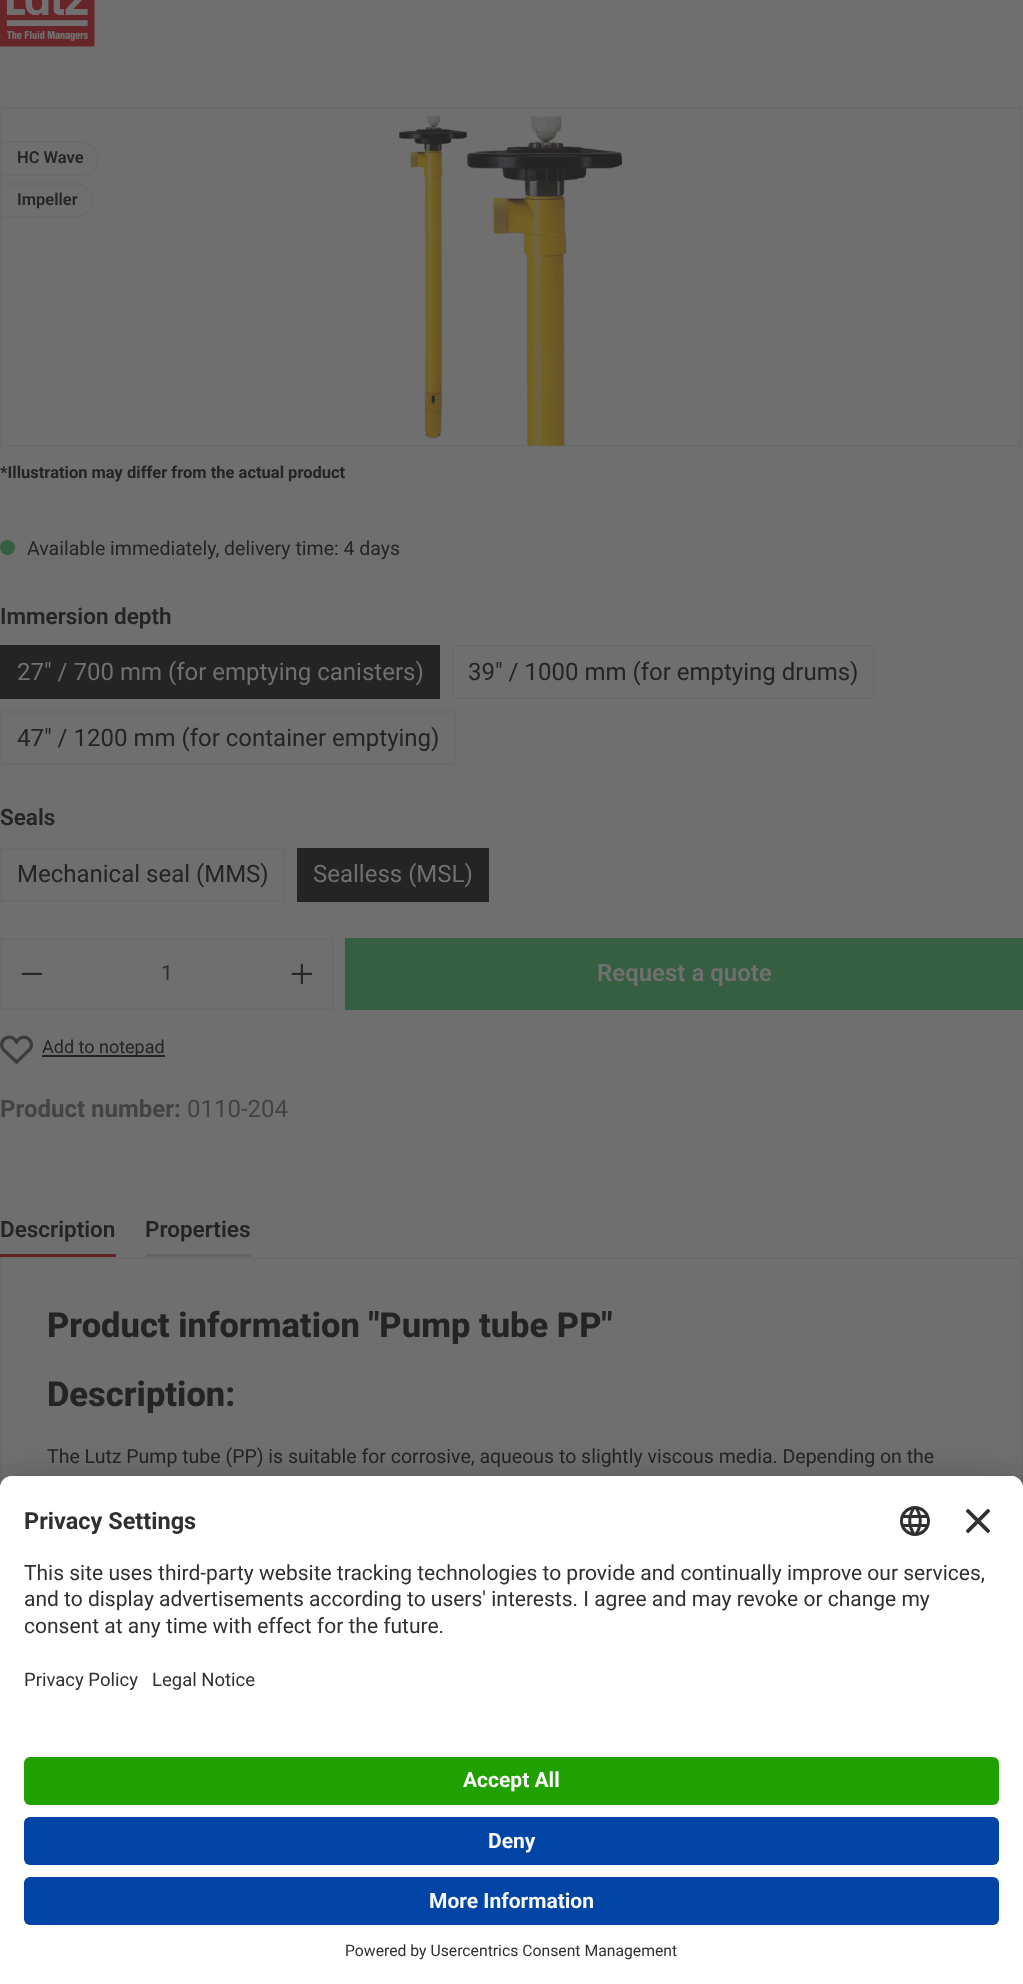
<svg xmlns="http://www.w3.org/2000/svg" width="1023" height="1984">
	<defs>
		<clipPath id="clip1"><rect x="2" y="108" width="1018" height="338" /></clipPath>
	</defs>
	<rect width="100%" height="100%" fill="#6F6F6F" />
	<image x="0" y="0" width="95" height="47" href="assets/img1.png" />
	<rect x="1" y="108" width="1020" height="338" fill="none" stroke="#6B6B6B" stroke-width="2" />
	<g clip-path="url(#clip1)">
		<path d="M1 142H81.5C90.5 142 98 149.5 98 158.5C98 167.5 90.5 175 81.5 175H1Z" fill="none" stroke="#6B6B6B" stroke-width="2" />
	</g>
	<text x="17" y="163" font-family="Roboto" font-size="16.5" font-weight="600" fill="#242424">HC Wave</text>
	<g clip-path="url(#clip1)">
		<path d="M1 184H75.5C84.5 184 92 191.5 92 200.5C92 209.5 84.5 217 75.5 217H1Z" fill="none" stroke="#6B6B6B" stroke-width="2" />
	</g>
	<text x="17" y="205" font-family="Roboto" font-size="16.5" font-weight="600" fill="#242424">Impeller</text>
	<image x="399" y="115" width="223" height="331" href="assets/img2.png" />
	<text x="0" y="478" font-family="Roboto" font-size="16.5" font-weight="700" fill="#242424">*Illustration may differ from the actual product</text>
	<circle cx="7.5" cy="547.5" r="7.5" fill="#365E41" />
	<text x="27" y="555" font-family="Roboto" font-size="19.5" fill="#242424">Available immediately, delivery time: 4 days</text>
	<text x="0" y="624" font-family="Roboto" font-size="22.5" font-weight="600" fill="#242424">Immersion depth</text>
	<rect x="0" y="645" width="440" height="54" fill="#242424" />
	<text x="17" y="680" font-family="Roboto" font-size="24" fill="#707070">27" / 700 mm (for emptying canisters)</text>
	<rect x="453" y="646" width="421" height="52" fill="none" stroke="#6B6B6B" stroke-width="2" />
	<text x="468" y="680" font-family="Roboto" font-size="24" fill="#242424">39" / 1000 mm (for emptying drums)</text>
	<rect x="1" y="712" width="454" height="52" fill="none" stroke="#6B6B6B" stroke-width="2" />
	<text x="17" y="746" font-family="Roboto" font-size="24" fill="#242424">47" / 1200 mm (for container emptying)</text>
	<text x="0" y="825" font-family="Roboto" font-size="22.5" font-weight="600" fill="#242424">Seals</text>
	<rect x="1" y="849" width="283" height="52" fill="none" stroke="#6B6B6B" stroke-width="2" />
	<text x="17" y="882" font-family="Roboto" font-size="24" fill="#242424">Mechanical seal (MMS)</text>
	<rect x="297" y="848" width="192" height="54" fill="#242424" />
	<text x="313" y="882" font-family="Roboto" font-size="24" fill="#707070">Sealless (MSL)</text>
	<rect x="0" y="938" width="333" height="2" fill="#6B6B6B" />
	<rect x="0" y="1008" width="273" height="2" fill="#6B6B6B" />
	<rect x="0" y="938" width="2" height="72" fill="#6B6B6B" />
	<image x="21" y="972" width="22" height="3" href="assets/img3.png" />
	<text x="161" y="980" font-family="Roboto" font-size="21" fill="#2F3031">1</text>
	<rect x="332" y="938" width="2" height="72" fill="#6B6B6B" />
	<rect x="272" y="1008" width="61" height="2" fill="#6B6B6B" />
	<image x="291" y="963" width="22" height="22" href="assets/img4.png" />
	<rect x="345" y="938" width="678" height="72" fill="#365E41" />
	<text x="597" y="981" font-family="Roboto" font-size="24" font-weight="600" fill="#707070">Request a quote</text>
	<image x="0" y="1035" width="33" height="30" href="assets/img5.png" />
	<rect x="42" y="1055" width="123" height="2" fill="#242424" />
	<text x="42" y="1053" font-family="Roboto" font-size="18" fill="#242424">Add to notepad</text>
	<text x="0" y="1117" font-family="Roboto" font-size="24" font-weight="700" fill="#434343">Product number:</text>
	<text x="187" y="1117" font-family="Roboto" font-size="24" fill="#434343">0110-204</text>
	<rect x="0" y="1254" width="116" height="3" fill="#612424" />
	<text x="0" y="1237" font-family="Roboto" font-size="22.5" font-weight="600" fill="#242424">Description</text>
	<rect x="146" y="1254" width="105" height="3" fill="#646464" />
	<text x="145" y="1237" font-family="Roboto" font-size="22.5" font-weight="600" fill="#242424">Properties</text>
	<rect x="1" y="1258" width="1021" height="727" fill="none" stroke="#6B6B6B" stroke-width="2" />
	<g font-family="Roboto" font-size="34.5" font-weight="800" fill="#242424">
		<text x="47" y="1337">Product information "Pump tube PP"</text>
		<text x="47" y="1406">Description:</text>
	</g>
	<text x="47" y="1463" font-family="Roboto" font-size="19.5" fill="#242424">The Lutz Pump tube (PP) is suitable for corrosive, aqueous to slightly viscous media. Depending on the</text>
	<rect x="0" y="1506" width="1023" height="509" rx="12" fill="#000000" fill-opacity="0.3" filter="blur(21px)" />
	<rect x="0" y="1484" width="1023" height="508" rx="12" fill="#000000" fill-opacity="0.22" filter="blur(19.5px)" />
	<path d="M12 1476H1011C1017.5 1476 1023 1481.5 1023 1488V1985H0V1488C0 1481.5 5.5 1476 12 1476Z" fill="#FFFFFF" />
	<path d="M12 1476H1011C1017.5 1476 1023 1481.5 1023 1488V1739H0V1488C0 1481.5 5.5 1476 12 1476Z" fill="#FFFFFF" />
	<text x="24" y="1529" font-family="Roboto" font-size="23.5" font-weight="700" fill="#2F3031">Privacy Settings</text>
	<image x="900" y="1506" width="30" height="30" href="assets/img6.png" />
	<image x="966" y="1509" width="24" height="24" href="assets/img7.png" />
	<g font-family="Roboto" font-size="21" fill="#2F3031">
		<text x="24" y="1580">This site uses third-party website tracking technologies to provide and continually improve our services,</text>
		<text x="24" y="1606">and to display advertisements according to users' interests. I agree and may revoke or change my</text>
		<text x="24" y="1633">consent at any time with effect for the future.</text>
	</g>
	<g font-family="Roboto" font-size="18.5" fill="#2F3031">
		<text x="24" y="1686">Privacy Policy</text>
		<text x="152" y="1686">Legal Notice</text>
	</g>
	<rect x="24" y="1757" width="975" height="48" rx="6" fill="#20A100" />
	<text x="463" y="1787" font-family="Roboto" font-size="21" font-weight="700" fill="#FAFAFA">Accept All</text>
	<rect x="24" y="1817" width="975" height="48" rx="6" fill="#0045A5" />
	<text x="488" y="1848" font-family="Roboto" font-size="21" font-weight="700" fill="#FAFAFA">Deny</text>
	<rect x="24" y="1877" width="975" height="48" rx="6" fill="#0045A5" />
	<text x="429" y="1908" font-family="Roboto" font-size="21" font-weight="700" fill="#FAFAFA">More Information</text>
	<text x="345" y="1956" font-family="Roboto" font-size="15.75" fill="#2F3031">Powered by Usercentrics Consent Management</text>
</svg>
